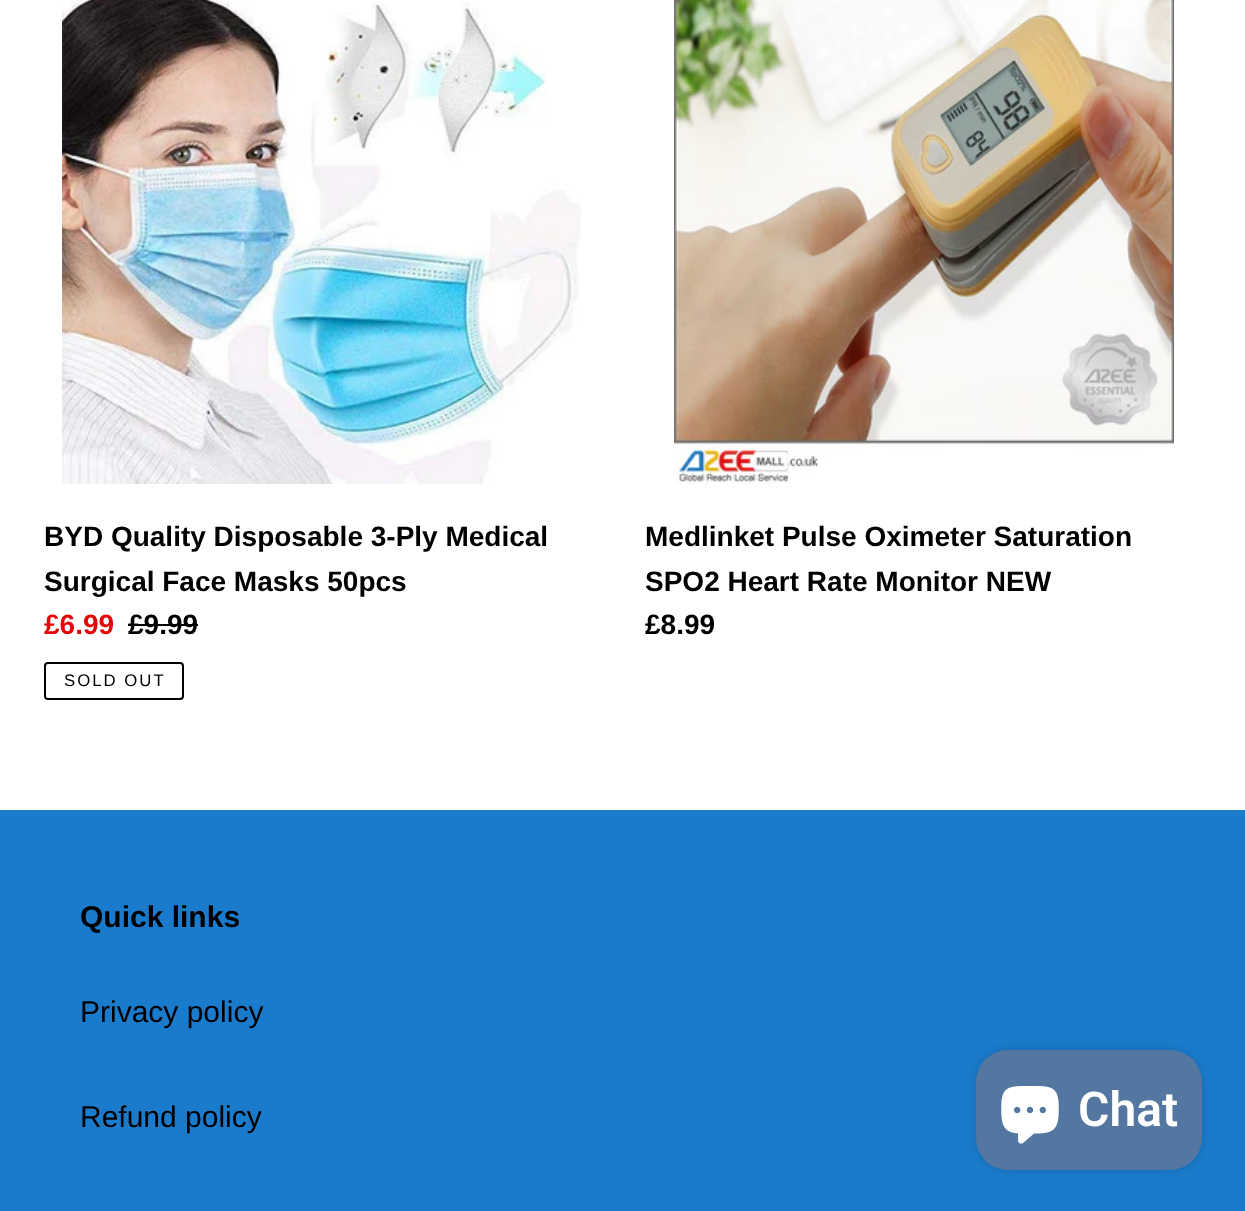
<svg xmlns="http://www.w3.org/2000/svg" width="1245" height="1211">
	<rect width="100%" height="100%" fill="#FFFFFF" />
	<image x="62" y="0" width="520" height="484" href="assets/img1.png" />
	<g font-family="Liberation Sans" font-size="28" font-weight="700" fill="#000000">
		<text x="44" y="546">BYD Quality Disposable 3-Ply Medical</text>
		<text x="44" y="591">Surgical Face Masks 50pcs</text>
	</g>
	<text x="44" y="634" font-family="Liberation Sans" font-size="28" font-weight="700" fill="#E50707">£6.99</text>
	<text x="128" y="634" font-family="Liberation Sans" font-size="28" font-weight="700" fill="#000000">£9.99</text>
	<rect x="128" y="624" width="70" height="2" fill="#000000" />
	<rect x="45" y="663" width="138" height="36" rx="3" fill="none" stroke="#000000" stroke-width="2" />
	<text x="64" y="686" font-family="Liberation Sans" font-size="16.75" letter-spacing="2" fill="#000000">SOLD OUT</text>
	<image x="674" y="0" width="500" height="484" href="assets/img2.png" />
	<g font-family="Liberation Sans" font-size="28" font-weight="700" fill="#000000">
		<text x="645" y="546">Medlinket Pulse Oximeter Saturation</text>
		<text x="645" y="591">SPO2 Heart Rate Monitor NEW</text>
		<text x="645" y="634">£8.99</text>
	</g>
	<rect x="0" y="810" width="1245" height="401" fill="#1A7BCC" />
	<text x="80" y="927" font-family="Liberation Sans" font-size="30" font-weight="700" fill="#000000">Quick links</text>
	<g font-family="Liberation Sans" font-size="30" fill="#000000">
		<text x="80" y="1022">Privacy policy</text>
		<text x="80" y="1127">Refund policy</text>
	</g>
	<rect x="976" y="1050" width="226" height="120" rx="32" fill="#000000" fill-opacity="0.15" filter="blur(5px)" />
	<rect x="976" y="1050" width="226" height="120" rx="32" fill="#5477A2" />
	<image x="1001" y="1086" width="58" height="58" href="assets/img3.png" />
	<text x="1078" y="1126" font-family="Roboto" font-size="48" font-weight="600" fill="#FFFFFF">Chat</text>
</svg>
